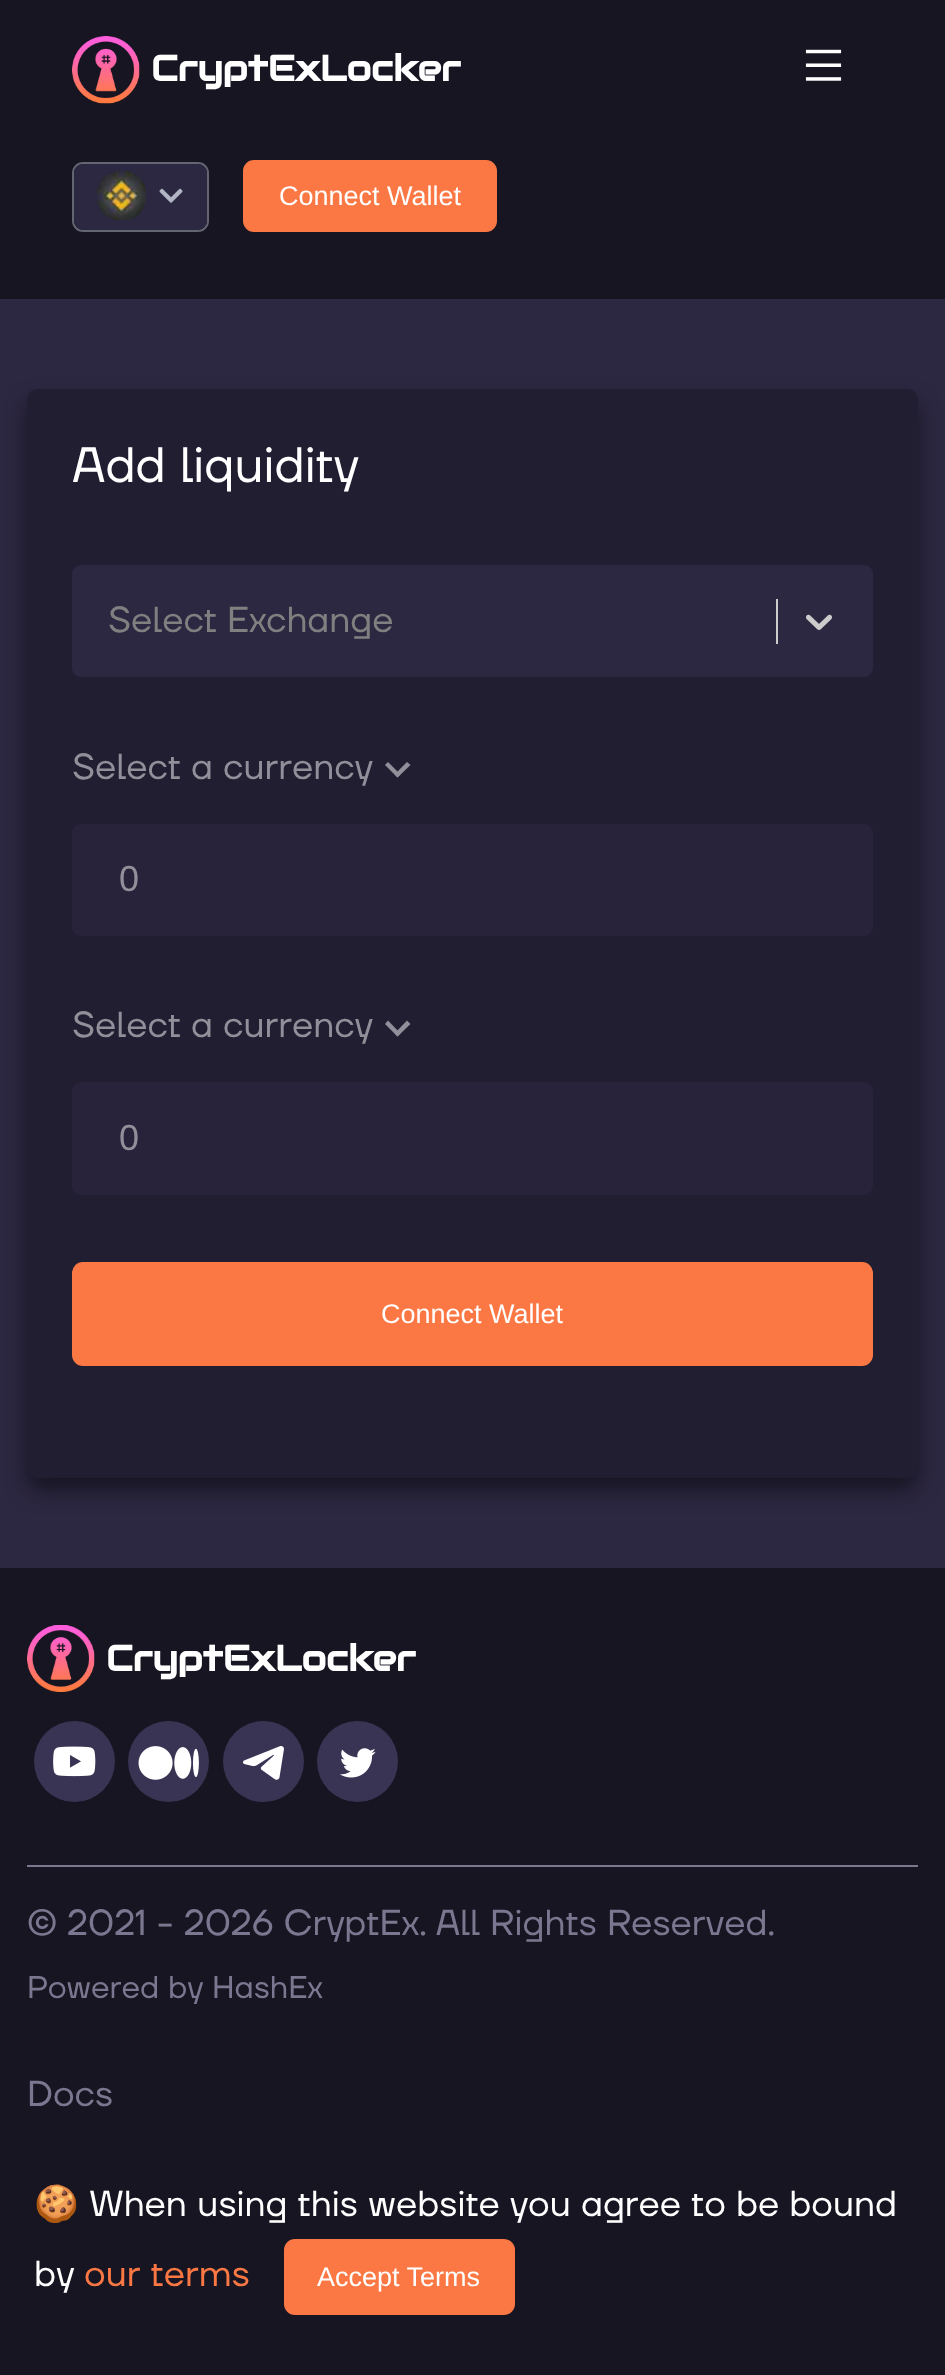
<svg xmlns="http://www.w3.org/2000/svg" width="945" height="2375">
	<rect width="100%" height="100%" fill="#2D2842" />
	<rect x="0" y="0" width="945" height="299" fill="#171522" />
	<image x="72" y="36" width="68" height="68" href="assets/img1.png" />
	<text x="151" y="81" font-family="Audiowide" font-size="36" font-weight="700" fill="#FFFFFF">CryptExLocker</text>
	<image x="805" y="49" width="37" height="32" href="assets/img2.png" />
	<rect x="73" y="163" width="135" height="68" rx="10" fill="none" stroke="#646573" stroke-width="2" />
	<rect x="74" y="164" width="133" height="66" rx="9" fill="#2D2842" />
	<image x="97" y="171" width="49" height="50" href="assets/img3.png" />
	<image x="159" y="188" width="24" height="15" href="assets/img4.png" />
	<rect x="244" y="161" width="252" height="70" rx="10" fill="#FB7844" stroke="#FB7844" stroke-width="2" />
	<text x="279" y="205" font-family="Liberation Sans" font-size="27" fill="#FFFFFF">Connect Wallet</text>
	<rect x="27" y="401" width="891" height="1089" rx="11" fill="#000000" fill-opacity="0.5" filter="blur(11px)" />
	<rect x="27" y="389" width="891" height="1089" rx="11" fill="#221E32" />
	<text x="72" y="482" font-family="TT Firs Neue" font-size="49.5" fill="#FFFFFF">Add liquidity</text>
	<rect x="73" y="566" width="799" height="110" rx="8" fill="#2D2842" stroke="#2D2842" stroke-width="2" />
	<text x="108" y="632" font-family="TT Firs Neue" font-size="36" fill="#808080">Select Exchange</text>
	<rect x="776" y="599" width="2" height="45" fill="#CCCCCC" />
	<image x="806" y="614" width="26" height="16" href="assets/img5.png" />
	<text x="72" y="779" font-family="TT Firs Neue" font-size="36" fill="#918F99">Select a currency</text>
	<path d="M407 762L410.5 765L397.5 777.5L394.5 774.5Z" fill="#918F99" />
	<path d="M388 762L400.5 774.5L397.5 777.5L385 765Z" fill="#918F99" />
	<rect x="72" y="824" width="801" height="112" rx="9" fill="#28233A" />
	<text x="119" y="891" font-family="Liberation Sans" font-size="36" fill="#918F99">0</text>
	<text x="72" y="1037" font-family="TT Firs Neue" font-size="36" fill="#918F99">Select a currency</text>
	<path d="M407 1020.5L410.5 1024L397.5 1036.5L394.5 1033.5Z" fill="#918F99" />
	<path d="M388 1020.5L400.5 1033.5L397.5 1036.5L385 1024Z" fill="#918F99" />
	<rect x="72" y="1082" width="801" height="113" rx="9" fill="#28233A" />
	<text x="119" y="1150" font-family="Liberation Sans" font-size="36" fill="#918F99">0</text>
	<rect x="73" y="1263" width="799" height="102" rx="10" fill="#FB7844" stroke="#FB7844" stroke-width="2" />
	<text x="381" y="1323" font-family="Liberation Sans" font-size="27" fill="#FFFFFF">Connect Wallet</text>
	<rect x="0" y="1568" width="945" height="807" fill="#171522" />
	<image x="27" y="1625" width="68" height="67" href="assets/img6.png" />
	<text x="106" y="1671" font-family="Audiowide" font-size="36" font-weight="700" fill="#FFFFFF">CryptExLocker</text>
	<circle cx="74.5" cy="1761.5" r="40.5" fill="#3A3454" />
	<image x="53" y="1746" width="43" height="31" href="assets/img7.png" />
	<circle cx="168.5" cy="1761.5" r="40.5" fill="#3A3454" />
	<image x="138" y="1746" width="61" height="34" href="assets/img8.png" />
	<circle cx="263.5" cy="1761.5" r="40.5" fill="#3A3454" />
	<image x="243" y="1746" width="41" height="34" href="assets/img9.png" />
	<circle cx="357.5" cy="1761.5" r="40.5" fill="#3A3454" />
	<image x="340" y="1748" width="36" height="30" href="assets/img10.png" />
	<rect x="27" y="1865" width="891" height="2" fill="#7C7790" />
	<text x="27" y="1935" font-family="TT Firs Neue" font-size="36" fill="#7C7790">© 2021 - 2026 CryptEx. All Rights Reserved.</text>
	<text x="27" y="1998" font-family="TT Firs Neue" font-size="31.5" fill="#7C7790">Powered by HashEx</text>
	<text x="27" y="2106" font-family="TT Firs Neue" font-size="36" fill="#7C7790">Docs</text>
	<text x="34" y="2216" font-family="Noto Color Emoji" font-size="36" fill="#FFFFFF">🍪</text>
	<g font-family="TT Firs Neue" font-size="36" fill="#FFFFFF">
		<text x="89" y="2216">When using this website you agree to be bound</text>
		<text x="34" y="2286">by</text>
	</g>
	<text x="84" y="2286" font-family="TT Firs Neue" font-size="36" fill="#FB7844">our terms</text>
	<rect x="284" y="2239" width="231" height="76" rx="11" fill="#FB7844" />
	<text x="317" y="2286" font-family="Liberation Sans" font-size="27" fill="#FFFFFF">Accept Terms</text>
</svg>
